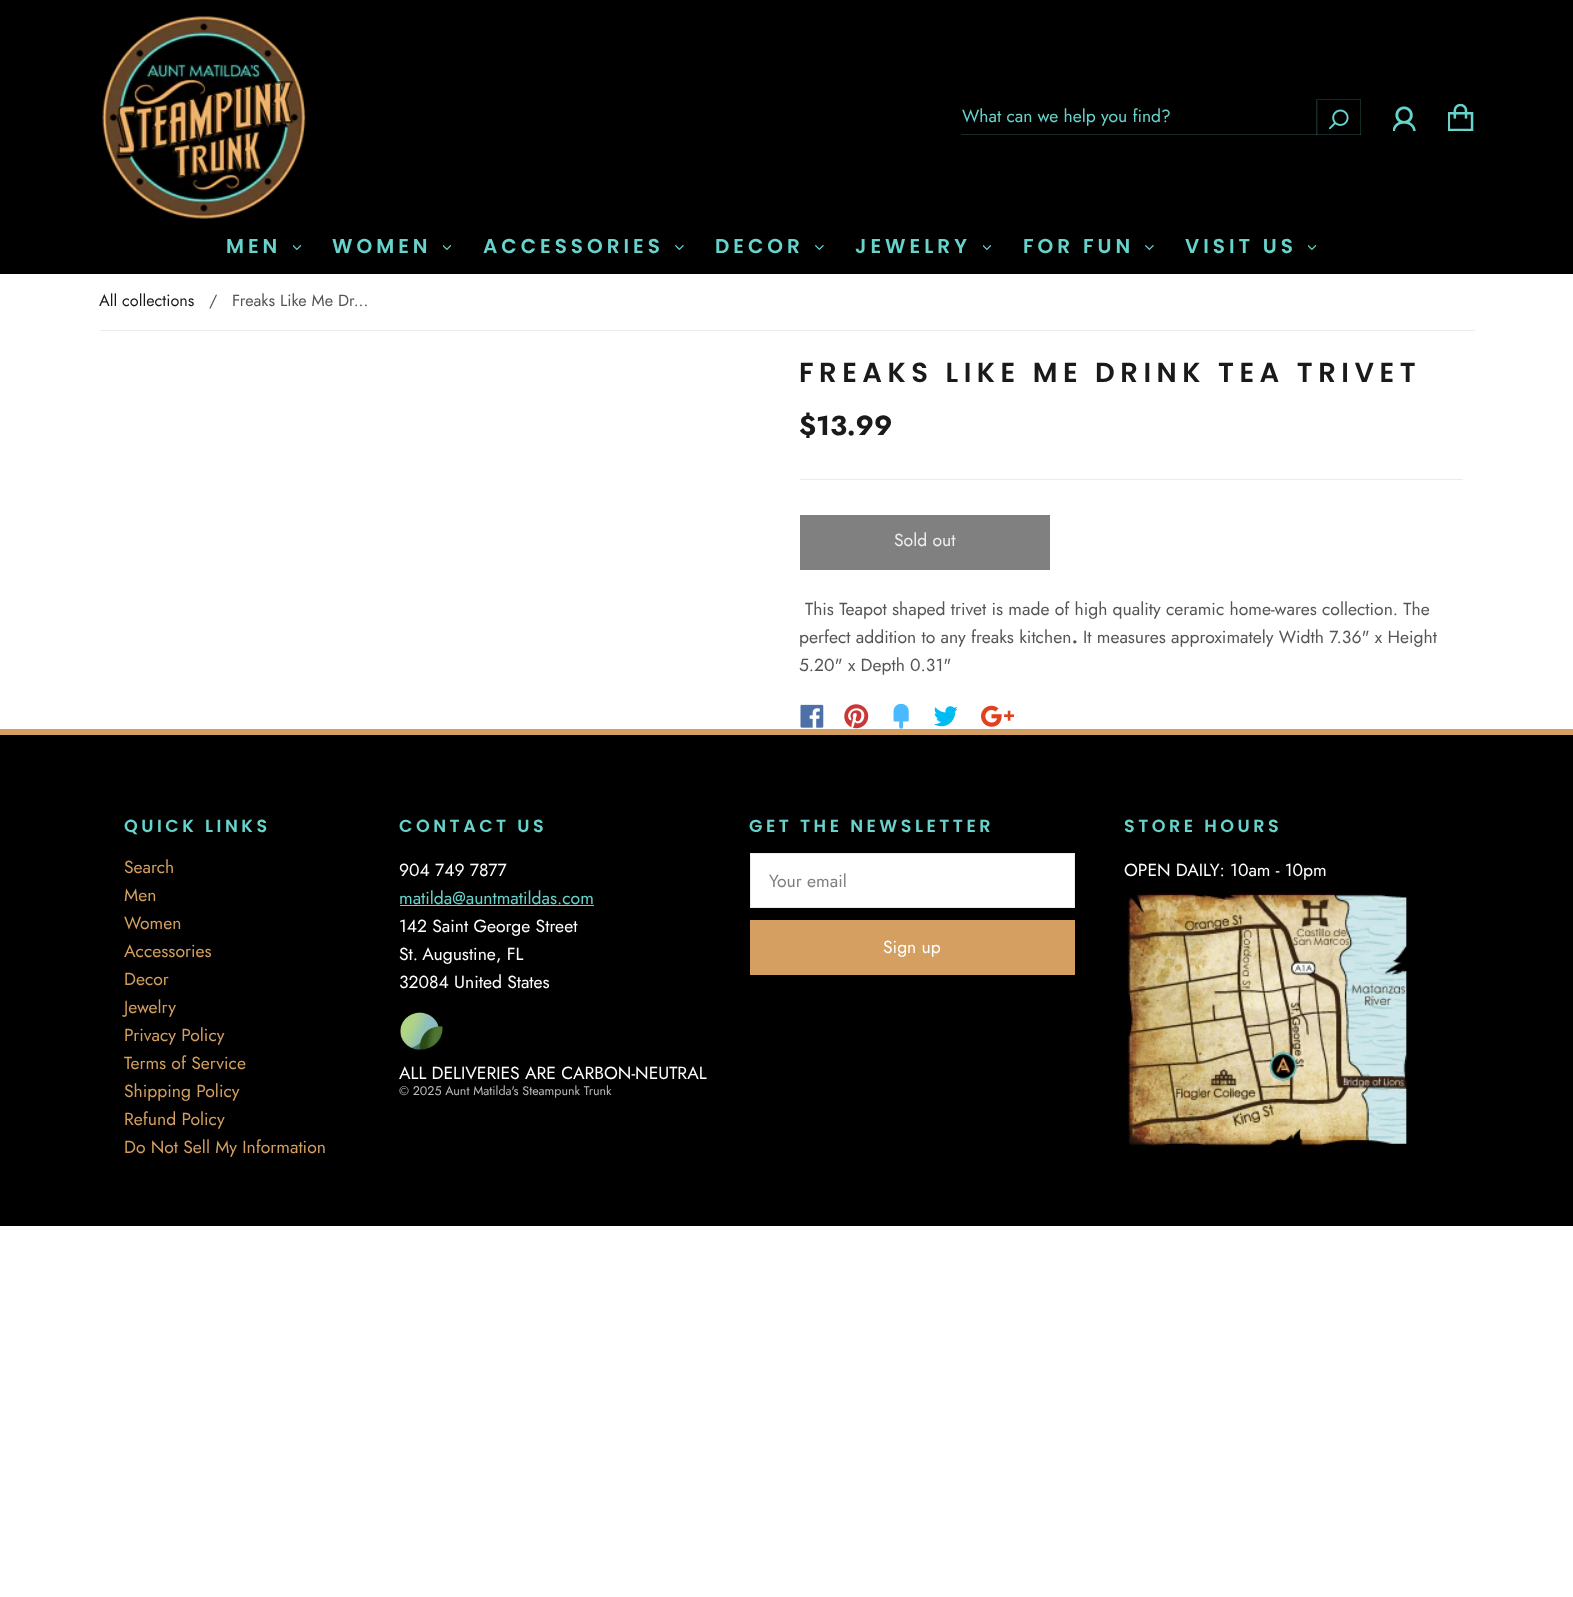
<svg xmlns="http://www.w3.org/2000/svg" width="1573" height="1597">
	<rect width="100%" height="100%" fill="#FFFFFF" />
	<rect x="0" y="0" width="1573" height="274" fill="#000000" />
	<image x="102" y="16" width="204" height="203" href="assets/img1.png" />
	<rect x="961" y="134" width="400" height="1" fill="#152A29" />
	<text x="962" y="122" font-family="Jost" font-size="17.5" fill="#67D3CB">What can we help you find?</text>
	<path d="M1316 99H1361L1360 100H1318Z" fill="#152A29" />
	<path d="M1361 99V135H1360V100ZM1316 135V99L1317.5 100V135Z" fill="#67D3CB" fill-opacity="0.2" />
	<image x="1329" y="109" width="20" height="21" href="assets/img2.png" />
	<image x="1393" y="106" width="23" height="25" href="assets/img3.png" />
	<image x="1448" y="104" width="26" height="27" href="assets/img4.png" />
	<text x="226" y="253" font-family="Poppins" font-size="20" font-weight="600" letter-spacing="4" fill="#67D3CB">MEN</text>
	<image x="293" y="245" width="8" height="5" href="assets/img5.png" />
	<text x="332" y="253" font-family="Poppins" font-size="20" font-weight="600" letter-spacing="4" fill="#67D3CB">WOMEN</text>
	<image x="443" y="245" width="8" height="5" href="assets/img5.png" />
	<text x="483" y="253" font-family="Poppins" font-size="20" font-weight="600" letter-spacing="4" fill="#67D3CB">ACCESSORIES</text>
	<image x="675" y="245" width="9" height="5" href="assets/img6.png" />
	<text x="715" y="253" font-family="Poppins" font-size="20" font-weight="600" letter-spacing="4" fill="#67D3CB">DECOR</text>
	<image x="815" y="245" width="9" height="5" href="assets/img6.png" />
	<text x="855" y="253" font-family="Poppins" font-size="20" font-weight="600" letter-spacing="4" fill="#67D3CB">JEWELRY</text>
	<image x="983" y="245" width="8" height="5" href="assets/img5.png" />
	<text x="1023" y="253" font-family="Poppins" font-size="20" font-weight="600" letter-spacing="4" fill="#67D3CB">FOR FUN</text>
	<image x="1145" y="245" width="9" height="5" href="assets/img6.png" />
	<text x="1185" y="253" font-family="Poppins" font-size="20" font-weight="600" letter-spacing="4" fill="#67D3CB">VISIT US</text>
	<image x="1308" y="245" width="8" height="5" href="assets/img5.png" />
	<rect x="100" y="330" width="1375" height="1" fill="#EBEBEB" />
	<text x="99" y="306" font-family="Jost" font-size="16.25" fill="#1A1A1A">All collections</text>
	<g font-family="Jost" font-size="16.25" fill="#555555">
		<text x="209" y="306">/</text>
		<text x="232" y="306">Freaks Like Me Dr...</text>
	</g>
	<rect x="800" y="479" width="663" height="1" fill="#EBEBEB" />
	<text x="799" y="382" font-family="Poppins" font-size="27.5" font-weight="600" letter-spacing="5.5" fill="#1A1A1A">FREAKS LIKE ME DRINK TEA TRIVET</text>
	<text x="799" y="435" font-family="Jost" font-size="27.5" font-weight="700" fill="#1A1A1A">$13.99</text>
	<rect x="800" y="515" width="250" height="55" fill="#808080" />
	<text x="894" y="546" font-family="Jost" font-size="17.5" fill="#EEEEEE">Sold out</text>
	<g font-family="Jost" font-size="17.5" fill="#555555">
		<text x="805" y="615">This Teapot shaped trivet is made of high quality ceramic home-wares collection. The</text>
		<text x="799" y="643">perfect addition to any freaks kitchen</text>
	</g>
	<text x="1072" y="643" font-family="Jost" font-size="17.5" font-weight="700" fill="#555555">.</text>
	<g font-family="Jost" font-size="17.5" fill="#555555">
		<text x="1083" y="643">It measures approximately Width 7.36" x Height</text>
		<text x="799" y="671">5.20" x Depth 0.31"</text>
	</g>
	<image x="800" y="704" width="24" height="24" href="assets/img7.png" />
	<image x="844" y="704" width="25" height="25" href="assets/img8.png" />
	<image x="893" y="704" width="16" height="25" href="assets/img9.png" />
	<image x="934" y="706" width="24" height="21" href="assets/img10.png" />
	<image x="981" y="705" width="33" height="22" href="assets/img11.png" />
	<rect x="0" y="735" width="1573" height="491" fill="#000000" />
	<rect x="0" y="729" width="1573" height="6" fill="#D49F60" />
	<text x="124" y="832" font-family="Poppins" font-size="17.5" font-weight="600" letter-spacing="3.5" fill="#67D3CB">QUICK LINKS</text>
	<g font-family="Jost" font-size="17.5" fill="#D49F60">
		<text x="124" y="873">Search</text>
		<text x="124" y="901">Men</text>
		<text x="124" y="929">Women</text>
		<text x="124" y="957">Accessories</text>
		<text x="124" y="985">Decor</text>
		<text x="124" y="1013">Jewelry</text>
		<text x="124" y="1041">Privacy Policy</text>
		<text x="124" y="1069">Terms of Service</text>
		<text x="124" y="1097">Shipping Policy</text>
		<text x="124" y="1125">Refund Policy</text>
		<text x="124" y="1153">Do Not Sell My Information</text>
	</g>
	<text x="399" y="832" font-family="Poppins" font-size="17.5" font-weight="600" letter-spacing="3.5" fill="#67D3CB">CONTACT US</text>
	<text x="399" y="876" font-family="Jost" font-size="17.5" fill="#FFFFFF">904 749 7877</text>
	<text x="399" y="904" font-family="Jost" font-size="17.5" fill="#67D3CB">matilda@auntmatildas.com</text>
	<rect x="400" y="905" width="194" height="1" fill="#67D3CB" />
	<g font-family="Jost" font-size="17.5" fill="#FFFFFF">
		<text x="399" y="932">142 Saint George Street</text>
		<text x="399" y="960" word-spacing="-1">St. Augustine</text>
		<text x="496" y="960">, FL</text>
		<text x="399" y="988">32084 United States</text>
	</g>
	<image x="400" y="1012" width="43" height="38" href="assets/img12.png" />
	<text x="399" y="1079" font-family="Jost" font-size="17.5" fill="#FFFFFF">ALL DELIVERIES ARE CARBON-NEUTRAL</text>
	<text x="749" y="832" font-family="Poppins" font-size="17.5" font-weight="600" letter-spacing="3.5" fill="#67D3CB">GET THE NEWSLETTER</text>
	<rect x="750.5" y="853.5" width="324" height="54" fill="#FFFFFF" stroke="#EBEBEB" />
	<text x="769" y="887" font-family="Jost" font-size="17.5" fill="#7F7F7F">Your email</text>
	<rect x="750" y="920" width="325" height="55" fill="#D49F60" />
	<text x="883" y="953" font-family="Jost" font-size="17.5" fill="#FFFFFF">Sign up</text>
	<image x="1125" y="891" width="285" height="258" href="assets/img13.png" />
	<text x="1124" y="832" font-family="Poppins" font-size="17.5" font-weight="600" letter-spacing="3.5" fill="#67D3CB">STORE HOURS</text>
	<text x="1124" y="876" font-family="Jost" font-size="17.5" fill="#FFFFFF">OPEN DAILY: 10am - 10pm</text>
	<text x="399" y="1095" font-family="Jost" font-size="12.5" fill="#BBBBBB">© 2025 Aunt Matilda's Steampunk Trunk</text>
</svg>
